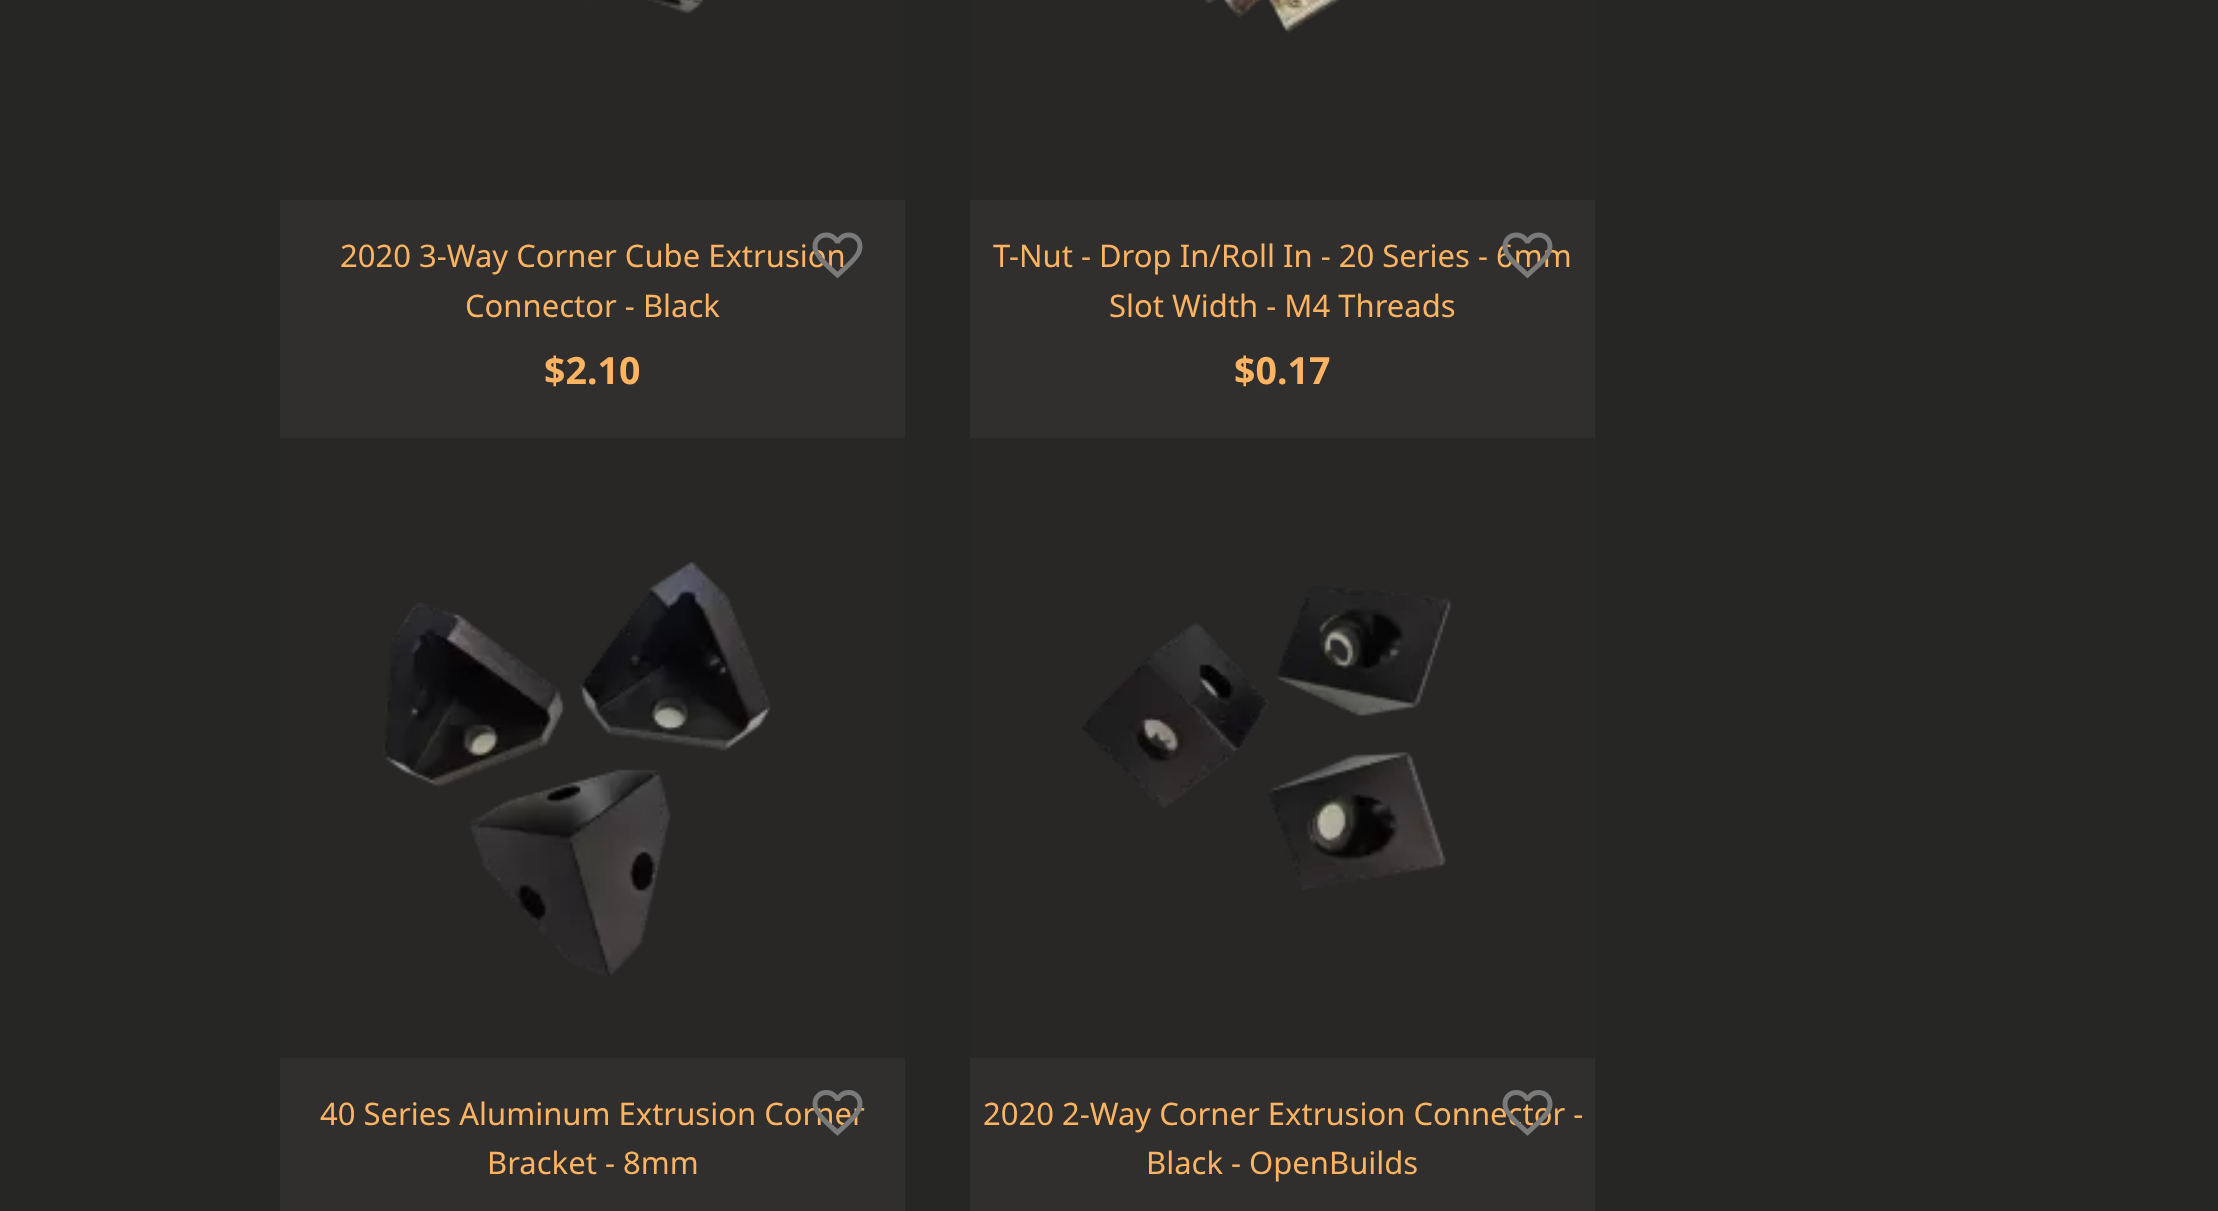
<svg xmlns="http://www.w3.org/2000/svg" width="2218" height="1211">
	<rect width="100%" height="100%" fill="#262624" />
	<rect x="280" y="0" width="625" height="200" fill="#292726" />
	<image x="588" y="0" width="116" height="14" href="assets/img1.png" />
	<rect x="280" y="200" width="625" height="238" fill="#302F2E" />
	<text x="340" y="267" font-family="Noto Sans" font-size="31" fill="#FCB463">2020 3-Way Corner Cube Extrusion</text>
	<image x="812" y="232" width="51" height="47" href="assets/img2.png" />
	<text x="465" y="317" font-family="Noto Sans" font-size="31" fill="#FCB463">Connector - Black</text>
	<text x="544" y="384" font-family="Noto Sans" font-size="37.5" font-weight="700" fill="#FCB463">$2.10</text>
	<rect x="970" y="0" width="625" height="200" fill="#292726" />
	<image x="1204" y="0" width="137" height="33" href="assets/img3.png" />
	<rect x="970" y="200" width="625" height="238" fill="#302F2E" />
	<text x="993" y="267" font-family="Noto Sans" font-size="31" fill="#FCB463">T-Nut - Drop In/Roll In - 20 Series - 6mm</text>
	<image x="1502" y="232" width="51" height="47" href="assets/img4.png" />
	<text x="1109" y="317" font-family="Noto Sans" font-size="31" fill="#FCB463">Slot Width - M4 Threads</text>
	<text x="1234" y="384" font-family="Noto Sans" font-size="37.5" font-weight="700" fill="#FCB463">$0.17</text>
	<rect x="280" y="438" width="625" height="620" fill="#292726" />
	<image x="383" y="562" width="388" height="415" href="assets/img5.png" />
	<rect x="280" y="1058" width="625" height="153" fill="#302F2E" />
	<text x="320" y="1125" font-family="Noto Sans" font-size="31" fill="#FCB463">40 Series Aluminum Extrusion Corner</text>
	<image x="812" y="1090" width="51" height="46" href="assets/img6.png" />
	<text x="487" y="1174" font-family="Noto Sans" font-size="31" fill="#FCB463">Bracket - 8mm</text>
	<rect x="970" y="438" width="625" height="620" fill="#292726" />
	<image x="1082" y="586" width="370" height="304" href="assets/img7.png" />
	<rect x="970" y="1058" width="625" height="153" fill="#302F2E" />
	<text x="983" y="1125" font-family="Noto Sans" font-size="31" fill="#FCB463">2020 2-Way Corner Extrusion Connector -</text>
	<image x="1502" y="1090" width="51" height="46" href="assets/img8.png" />
	<text x="1146" y="1174" font-family="Noto Sans" font-size="31" fill="#FCB463">Black - OpenBuilds</text>
</svg>
